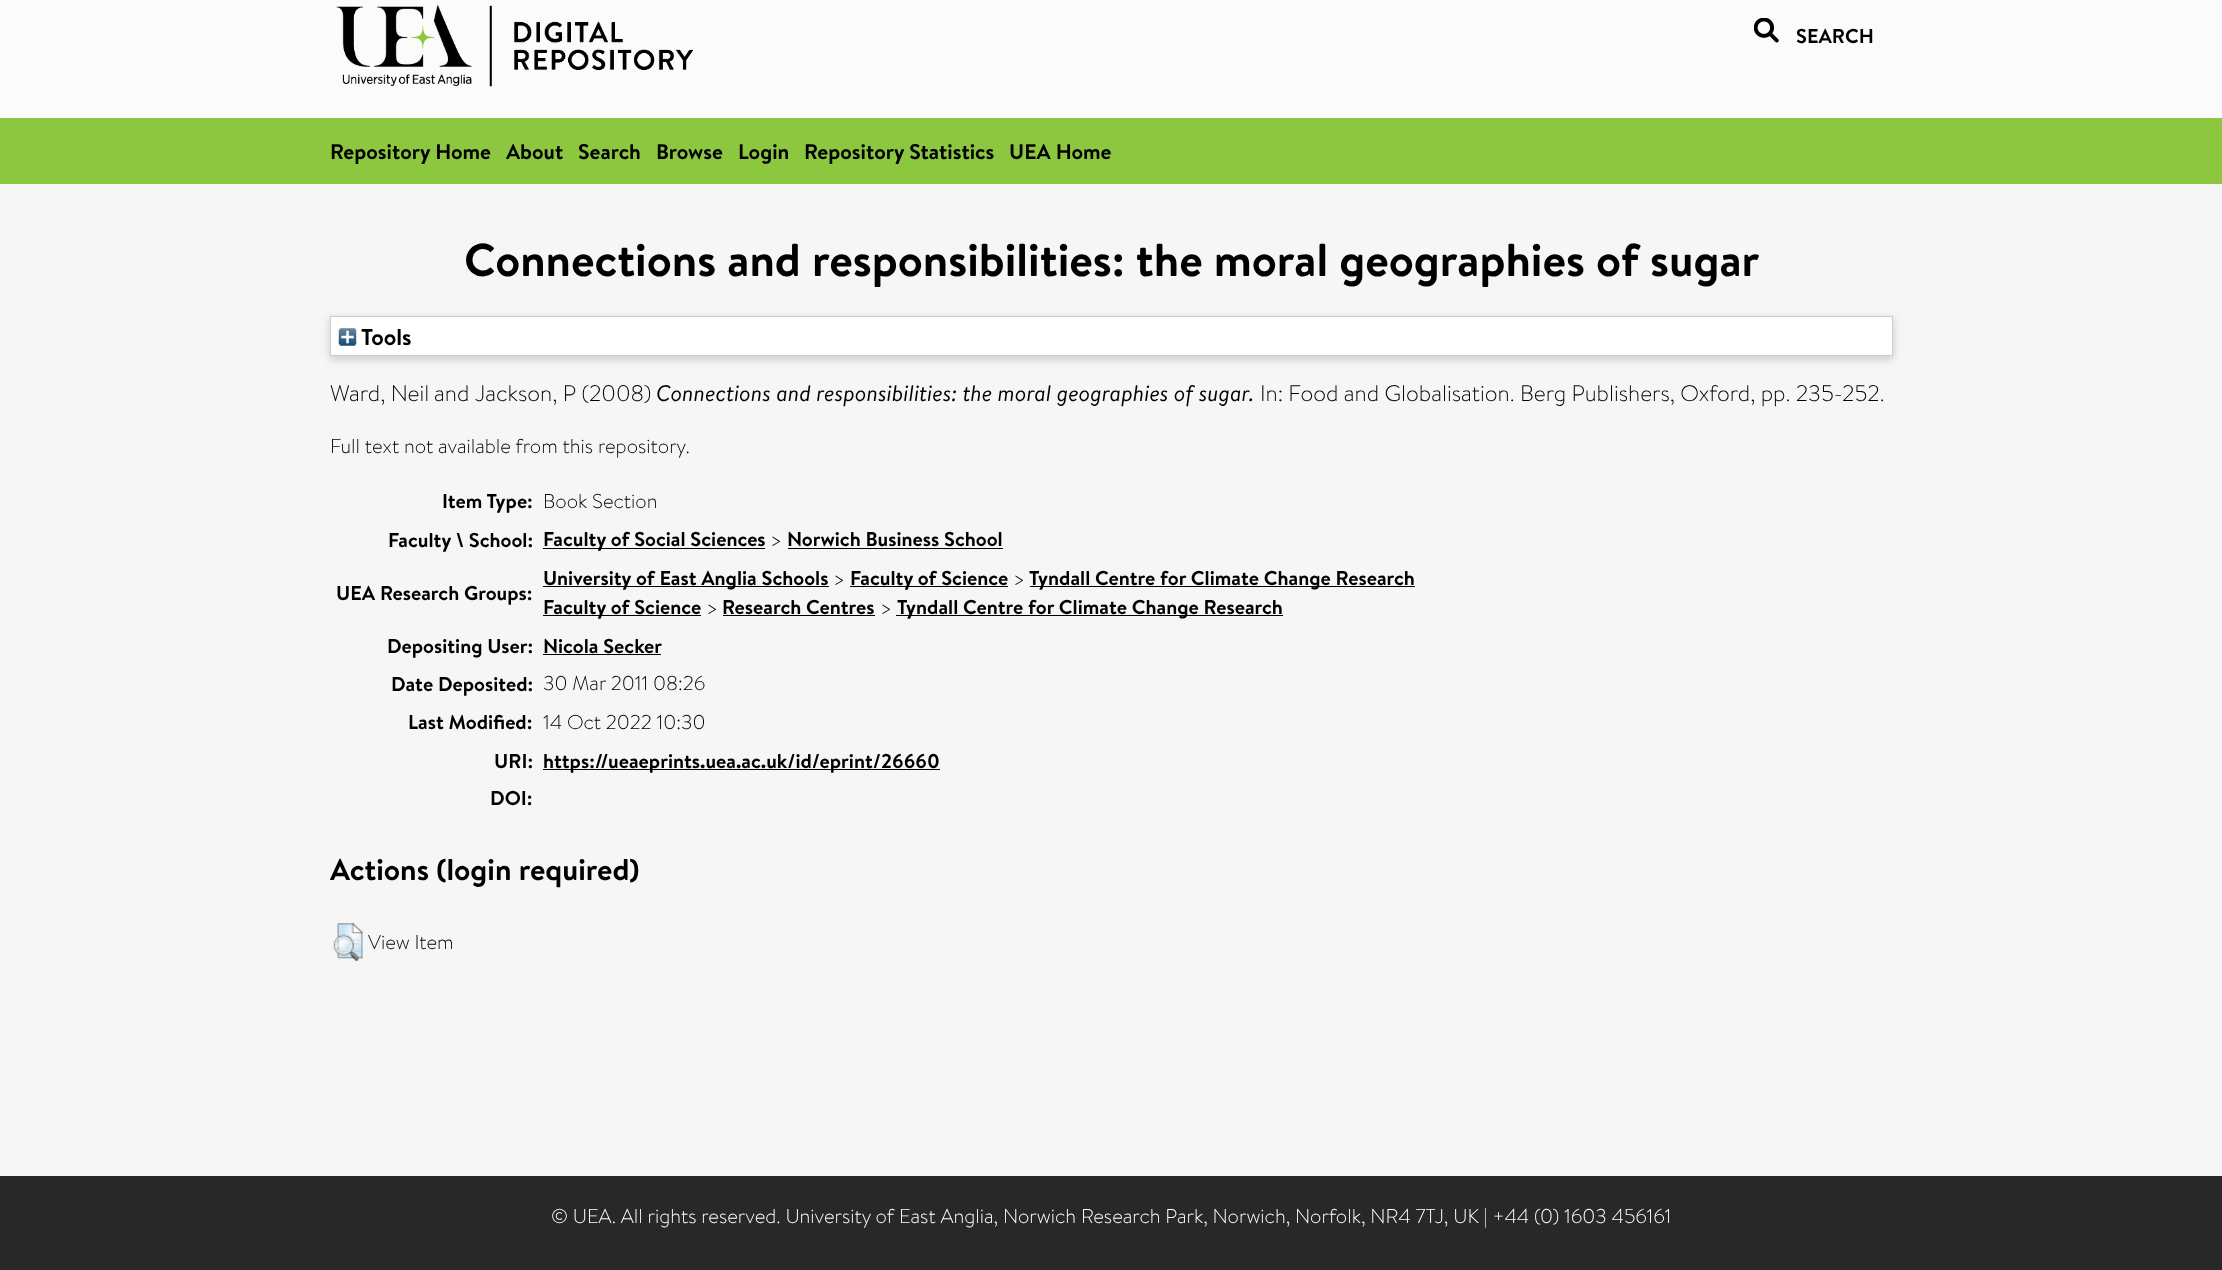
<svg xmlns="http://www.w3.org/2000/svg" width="2222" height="1270">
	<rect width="100%" height="100%" fill="#F6F6F6" />
	<rect x="0" y="0" width="2222" height="118" fill="#FBFBFB" />
	<image x="336" y="5" width="357" height="82" href="assets/img1.png" />
	<image x="1754" y="18" width="25" height="25" href="assets/img2.png" />
	<text x="1796" y="43" font-family="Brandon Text" font-size="20" font-weight="700" fill="#000000">SEARCH</text>
	<rect x="0" y="118" width="2222" height="66" fill="#8DC63F" />
	<g font-family="Brandon Text" font-size="21.25" font-weight="700" fill="#000000">
		<text x="330" y="159">Repository Home</text>
		<text x="506" y="159">About</text>
		<text x="578" y="159">Search</text>
		<text x="656" y="159">Browse</text>
		<text x="738" y="159">Login</text>
		<text x="804" y="159">Repository Statistics</text>
		<text x="1009" y="159">UEA Home</text>
	</g>
	<text x="464" y="276" font-family="Brandon Text" font-size="46" font-weight="700" fill="#000000">Connections and responsibilities: the moral geographies of sugar</text>
	<rect x="330" y="319" width="1563" height="40" fill="#646464" fill-opacity="0.3" filter="blur(4px)" />
	<rect x="330.5" y="316.5" width="1562" height="39" fill="#FFFFFF" stroke="#CCCCCC" />
	<image x="338" y="328" width="19" height="18" href="assets/img3.png" />
	<text x="361" y="345" font-family="Brandon Text" font-size="23" font-weight="700" fill="#000000">Tools</text>
	<g font-family="Brandon Text" font-size="22.5" font-weight="300" fill="#000000">
		<text x="330" y="401">Ward, Neil</text>
		<text x="434" y="401">and</text>
		<text x="475" y="401">Jackson, P (2008)</text>
	</g>
	<text x="656" y="401" font-family="Brandon Text" font-size="22.5" font-style="italic" fill="#000000">Connections and responsibilities: the moral geographies of sugar.</text>
	<text x="1260" y="401" font-family="Brandon Text" font-size="22.5" font-weight="300" fill="#000000">In: Food and Globalisation. Berg Publishers, Oxford, pp. 235-252.</text>
	<text x="330" y="453" font-family="Brandon Text" font-size="20" font-weight="300" fill="#000000">Full text not available from this repository.</text>
	<text x="442" y="508" font-family="Brandon Text" font-size="20" font-weight="700" fill="#000000">Item Type:</text>
	<text x="543" y="508" font-family="Brandon Text" font-size="20" font-weight="300" fill="#000000">Book Section</text>
	<text x="388" y="547" font-family="Brandon Text" font-size="20" font-weight="700" fill="#000000">Faculty \ School:</text>
	<rect x="543" y="548" width="222" height="1" fill="#000000" />
	<text x="543" y="546" font-family="Brandon Text" font-size="20" font-weight="700" fill="#000000">Faculty of Social Sciences</text>
	<text x="770" y="546" font-family="Brandon Text" font-size="20" font-weight="300" fill="#000000">&gt;</text>
	<text x="787" y="546" font-family="Brandon Text" font-size="20" font-weight="700" fill="#000000">Norwich Business School</text>
	<rect x="788" y="548" width="215" height="1" fill="#000000" />
	<text x="336" y="600" font-family="Brandon Text" font-size="20" font-weight="700" fill="#000000">UEA Research Groups:</text>
	<rect x="543" y="586" width="286" height="1" fill="#000000" />
	<text x="543" y="585" font-family="Brandon Text" font-size="20" font-weight="700" fill="#000000">University of East Anglia Schools</text>
	<text x="833" y="585" font-family="Brandon Text" font-size="20" font-weight="300" fill="#000000">&gt;</text>
	<rect x="850" y="586" width="158" height="1" fill="#000000" />
	<text x="850" y="585" font-family="Brandon Text" font-size="20" font-weight="700" fill="#000000">Faculty of Science</text>
	<text x="1013" y="585" font-family="Brandon Text" font-size="20" font-weight="300" fill="#000000">&gt;</text>
	<rect x="1030" y="586" width="385" height="1" fill="#000000" />
	<text x="1029" y="585" font-family="Brandon Text" font-size="20" font-weight="700" fill="#000000">Tyndall Centre for Climate Change Research</text>
	<rect x="543" y="615" width="158" height="1" fill="#000000" />
	<text x="543" y="614" font-family="Brandon Text" font-size="20" font-weight="700" fill="#000000">Faculty of Science</text>
	<text x="706" y="614" font-family="Brandon Text" font-size="20" font-weight="300" fill="#000000">&gt;</text>
	<text x="722" y="614" font-family="Brandon Text" font-size="20" font-weight="700" fill="#000000">Research Centres</text>
	<rect x="723" y="615" width="152" height="1" fill="#000000" />
	<text x="880" y="614" font-family="Brandon Text" font-size="20" font-weight="300" fill="#000000">&gt;</text>
	<rect x="896" y="615" width="387" height="1" fill="#000000" />
	<g font-family="Brandon Text" font-size="20" font-weight="700" fill="#000000">
		<text x="897" y="614">Tyndall Centre for Climate Change Research</text>
		<text x="387" y="653">Depositing User:</text>
		<text x="543" y="653">Nicola Secker</text>
	</g>
	<rect x="543" y="654" width="118" height="1" fill="#000000" />
	<text x="391" y="691" font-family="Brandon Text" font-size="20" font-weight="700" fill="#000000">Date Deposited:</text>
	<text x="543" y="690" font-family="Brandon Text" font-size="20" font-weight="300" fill="#000000">30 Mar 2011 08:26</text>
	<text x="408" y="729" font-family="Brandon Text" font-size="20" font-weight="700" fill="#000000">Last Modified:</text>
	<text x="543" y="729" font-family="Brandon Text" font-size="20" font-weight="300" fill="#000000">14 Oct 2022 10:30</text>
	<text x="494" y="768" font-family="Brandon Text" font-size="20" font-weight="700" fill="#000000">URI:</text>
	<rect x="543" y="769" width="397" height="1" fill="#000000" />
	<g font-family="Brandon Text" font-size="20" font-weight="700" fill="#000000">
		<text x="543" y="768">https://ueaeprints.uea.ac.uk/id/eprint/26660</text>
		<text x="490" y="805">DOI:</text>
	</g>
	<text x="330" y="880" font-family="Brandon Text" font-size="30" font-weight="700" fill="#000000">Actions (login required)</text>
	<image x="333" y="923" width="30" height="38" href="assets/img4.png" />
	<text x="368" y="949" font-family="Brandon Text" font-size="20" font-weight="300" fill="#000000">View Item</text>
	<rect x="0" y="1176" width="2222" height="94" fill="#282828" />
	<text x="551" y="1223" font-family="Brandon Text" font-size="20" font-weight="300" fill="#FFFFFF">© UEA. All rights reserved. University of East Anglia, Norwich Research Park, Norwich, Norfolk, NR4 7TJ, UK | +44 (0) 1603 456161</text>
</svg>
